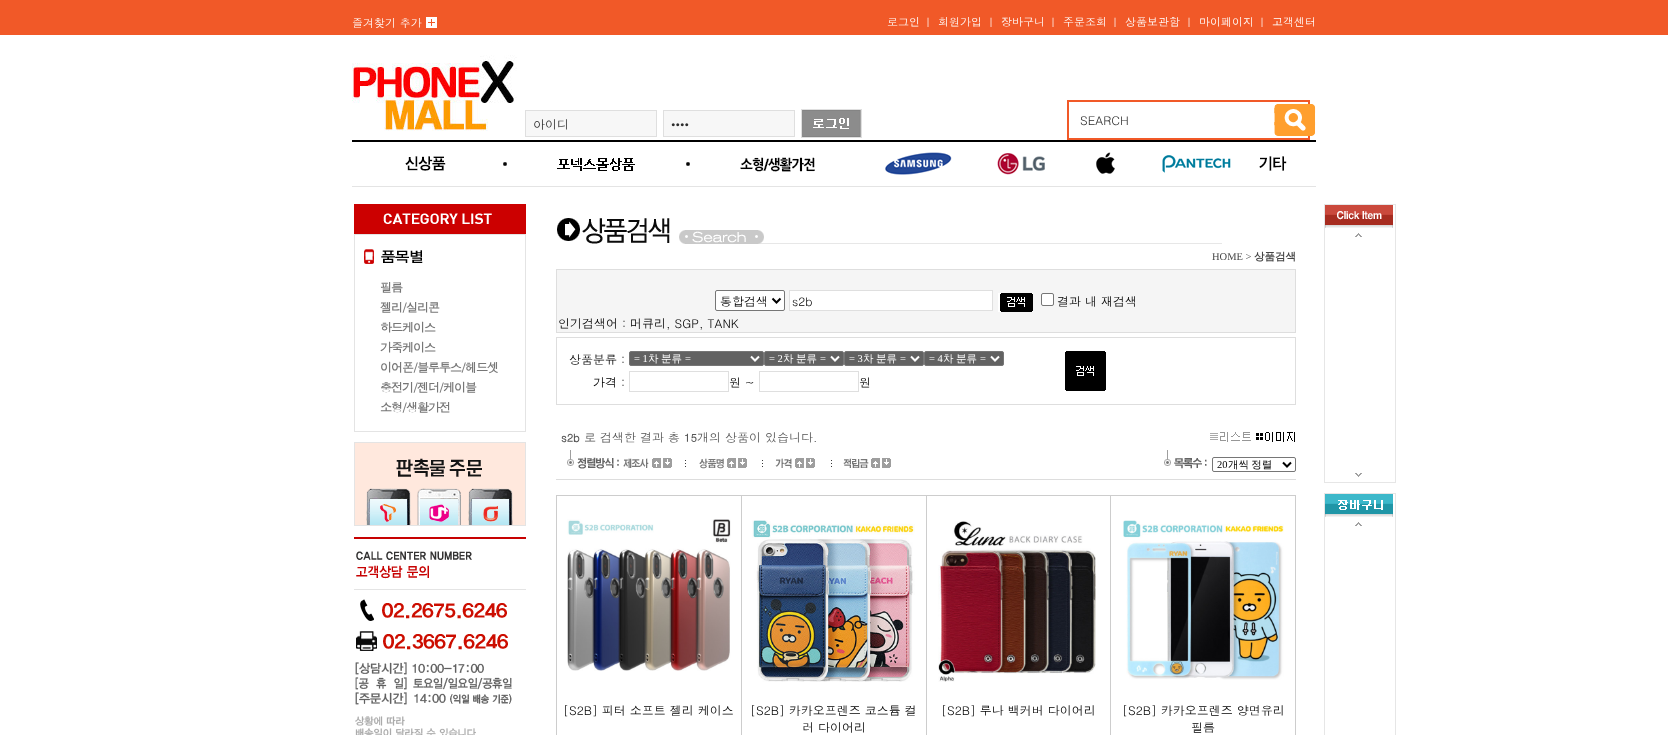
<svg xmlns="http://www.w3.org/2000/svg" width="1668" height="735">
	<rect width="100%" height="100%" fill="#FFFFFF" />
	<rect x="0" y="0" width="1668" height="35" fill="#F15928" />
	<image x="426" y="17" width="11" height="11" href="assets/img1.png" />
	<g font-family="Dotum" font-size="11" fill="#FFFFFF">
		<text x="352" y="27">즐겨찾기 추가</text>
		<text x="887" y="26">로그인</text>
	</g>
	<text x="923" y="26" font-family="Dotum" font-size="10" fill="#FFFFFF">｜</text>
	<text x="938" y="26" font-family="Dotum" font-size="11" fill="#FFFFFF">회원가입</text>
	<text x="986" y="26" font-family="Dotum" font-size="10" fill="#FFFFFF">｜</text>
	<text x="1001" y="26" font-family="Dotum" font-size="11" fill="#FFFFFF">장바구니</text>
	<text x="1048" y="26" font-family="Dotum" font-size="10" fill="#FFFFFF">｜</text>
	<text x="1063" y="26" font-family="Dotum" font-size="11" fill="#FFFFFF">주문조회</text>
	<text x="1110" y="26" font-family="Dotum" font-size="10" fill="#FFFFFF">｜</text>
	<text x="1125" y="26" font-family="Dotum" font-size="11" fill="#FFFFFF">상품보관함</text>
	<text x="1184" y="26" font-family="Dotum" font-size="10" fill="#FFFFFF">｜</text>
	<text x="1199" y="26" font-family="Dotum" font-size="11" fill="#FFFFFF">마이페이지</text>
	<text x="1257" y="26" font-family="Dotum" font-size="10" fill="#FFFFFF">｜</text>
	<text x="1272" y="26" font-family="Dotum" font-size="11" fill="#FFFFFF">고객센터</text>
	<image x="352" y="55" width="165" height="76" href="assets/img2.png" />
	<rect x="525.5" y="110.5" width="131" height="26" fill="#F7F7F7" stroke="#DFDFDF" />
	<text x="533" y="129" font-family="Dotum" font-size="12" fill="#2D2D2D">아이디</text>
	<rect x="663.5" y="110.5" width="131" height="26" fill="#F7F7F7" stroke="#DFDFDF" />
	<text x="671" y="129" font-family="Dotum" font-size="12" fill="#2D2D2D">••••</text>
	<rect x="801.5" y="109.5" width="60" height="28" fill="none" stroke="#DFDFDF" />
	<image x="802" y="110" width="59" height="27" href="assets/img3.png" />
	<image x="1067" y="100" width="243" height="40" href="assets/img4.png" />
	<text x="1080" y="125" font-family="Dotum" font-size="12" fill="#2D2D2D">SEARCH</text>
	<image x="1274" y="104" width="42" height="32" href="assets/img5.png" />
	<rect x="352" y="140" width="964" height="2" fill="#000000" />
	<rect x="352" y="186" width="964" height="1" fill="#E4E4E4" />
	<image x="405" y="156" width="102" height="15" href="assets/img6.png" />
	<image x="557" y="158" width="133" height="13" href="assets/img7.png" />
	<image x="740" y="157" width="75" height="15" href="assets/img8.png" />
	<image x="885" y="152" width="67" height="23" href="assets/img9.png" />
	<image x="997" y="153" width="48" height="22" href="assets/img10.png" />
	<image x="1096" y="152" width="19" height="22" href="assets/img11.png" />
	<image x="1162" y="155" width="69" height="18" href="assets/img12.png" />
	<image x="1259" y="156" width="28" height="15" href="assets/img13.png" />
	<rect x="354" y="431" width="172" height="1" fill="#E4E4E4" />
	<image x="354" y="204" width="172" height="30" href="assets/img14.png" />
	<rect x="354" y="234" width="172" height="1" fill="#E4E4E4" />
	<rect x="525" y="234" width="1" height="197" fill="#E4E4E4" />
	<rect x="354" y="234" width="1" height="197" fill="#E4E4E4" />
	<image x="364" y="249" width="59" height="15" href="assets/img15.png" />
	<g font-family="Dotum" font-size="12" font-weight="700" letter-spacing="-1" fill="#777777">
		<text x="380" y="292">필름</text>
		<text x="380" y="312">젤리/실리콘</text>
		<text x="380" y="332">하드케이스</text>
		<text x="380" y="352">가죽케이스</text>
		<text x="380" y="372">이어폰/블루투스/헤드셋</text>
		<text x="380" y="392">충전기/젠더/케이블</text>
		<text x="380" y="412">소형/생활가전</text>
	</g>
	<image x="354" y="442" width="172" height="84" href="assets/img16.png" />
	<image x="354" y="537" width="172" height="198" href="assets/img17.png" />
	<image x="557" y="218" width="665" height="26" href="assets/img18.png" />
	<text x="1212" y="260" font-family="Liberation Serif" font-size="10.5" fill="#464646">HOME &gt;</text>
	<text x="1254" y="260" font-family="WenQuanYi Zen Hei" font-size="10.5" font-weight="700" fill="#464646">상품검색</text>
	<rect x="556.5" y="269.5" width="739" height="63" fill="#F5F5F5" stroke="#DEDEDE" />
	<rect x="715.5" y="290.5" width="69" height="20" rx="1.5" fill="#FFFFFF" stroke="#767676" />
	<path d="M772.5 298.5L776.5 302.5L780.5 298.5" fill="none" stroke="#000000" stroke-width="2" />
	<text x="720" y="306" font-family="Dotum" font-size="12" fill="#000000">통합검색</text>
	<rect x="789.5" y="290.5" width="203" height="20" fill="#FFFFFF" stroke="#DFDFDF" />
	<text x="792" y="306" font-family="Dotum" font-size="12" fill="#000000">s2b</text>
	<image x="998" y="293" width="35" height="19" href="assets/img19.png" />
	<rect x="1041.5" y="293.5" width="12" height="12" rx="1.5" fill="#FFFFFF" stroke="#767676" />
	<g font-family="Dotum" font-size="12" fill="#000000">
		<text x="1057" y="306">결과 내 재검색</text>
		<text x="558" y="328">인기검색어 : 머큐리, SGP, TANK</text>
	</g>
	<rect x="556.5" y="337.5" width="739" height="67" fill="none" stroke="#DEDEDE" />
	<text x="569" y="364" font-family="Dotum" font-size="12" fill="#000000">상품분류 :</text>
	<rect x="629.5" y="351.5" width="134" height="14" rx="1.5" fill="#626262" stroke="#767676" />
	<path d="M751 356.5L755 360.5L759 356.5" fill="none" stroke="#FFFFFF" stroke-width="2" />
	<text x="634" y="362" font-family="Liberation Serif" font-size="10.5" fill="#FFFFFF">= 1</text>
	<g font-family="WenQuanYi Zen Hei" font-size="10.5" font-weight="500" fill="#FFFFFF">
		<text x="648" y="362">차</text>
		<text x="661" y="362">분류</text>
	</g>
	<text x="685" y="362" font-family="Liberation Serif" font-size="10.5" fill="#FFFFFF">=</text>
	<rect x="764.5" y="351.5" width="79" height="14" rx="1.5" fill="#626262" stroke="#767676" />
	<path d="M831 356.5L835 360.5L839 356.5" fill="none" stroke="#FFFFFF" stroke-width="2" />
	<text x="769" y="362" font-family="Liberation Serif" font-size="10.5" fill="#FFFFFF">= 2</text>
	<g font-family="WenQuanYi Zen Hei" font-size="10.5" font-weight="500" fill="#FFFFFF">
		<text x="783" y="362">차</text>
		<text x="796" y="362">분류</text>
	</g>
	<text x="820" y="362" font-family="Liberation Serif" font-size="10.5" fill="#FFFFFF">=</text>
	<rect x="844.5" y="351.5" width="79" height="14" rx="1.5" fill="#626262" stroke="#767676" />
	<path d="M911 356.5L915 360.5L919 356.5" fill="none" stroke="#FFFFFF" stroke-width="2" />
	<text x="849" y="362" font-family="Liberation Serif" font-size="10.5" fill="#FFFFFF">= 3</text>
	<g font-family="WenQuanYi Zen Hei" font-size="10.5" font-weight="500" fill="#FFFFFF">
		<text x="863" y="362">차</text>
		<text x="876" y="362">분류</text>
	</g>
	<text x="900" y="362" font-family="Liberation Serif" font-size="10.5" fill="#FFFFFF">=</text>
	<rect x="924.5" y="351.5" width="79" height="14" rx="1.5" fill="#626262" stroke="#767676" />
	<path d="M991 356.5L995 360.5L999 356.5" fill="none" stroke="#FFFFFF" stroke-width="2" />
	<text x="929" y="362" font-family="Liberation Serif" font-size="10.5" fill="#FFFFFF">= 4</text>
	<g font-family="WenQuanYi Zen Hei" font-size="10.5" font-weight="500" fill="#FFFFFF">
		<text x="943" y="362">차</text>
		<text x="956" y="362">분류</text>
	</g>
	<text x="980" y="362" font-family="Liberation Serif" font-size="10.5" fill="#FFFFFF">=</text>
	<text x="593" y="387" font-family="Dotum" font-size="12" fill="#000000">가격 :</text>
	<rect x="629.5" y="371.5" width="99" height="20" fill="none" stroke="#DFDFDF" />
	<text x="729" y="387" font-family="Dotum" font-size="12" fill="#000000">원 ~</text>
	<rect x="759.5" y="371.5" width="99" height="20" fill="none" stroke="#DFDFDF" />
	<text x="859" y="387" font-family="Dotum" font-size="12" fill="#000000">원</text>
	<image x="1065" y="351" width="41" height="40" href="assets/img20.png" />
	<text x="561" y="442" font-family="Dotum" font-size="11" font-weight="700" fill="#555555">s2b</text>
	<text x="584" y="442" font-family="Dotum" font-size="12" fill="#555555">로 검색한 결과 총</text>
	<text x="684" y="442" font-family="Dotum" font-size="11" font-weight="700" fill="#555555">15</text>
	<text x="697" y="442" font-family="Dotum" font-size="12" fill="#555555">개의 상품이 있습니다.</text>
	<image x="1210" y="432" width="41" height="10" href="assets/img21.png" />
	<image x="1256" y="432" width="39" height="10" href="assets/img22.png" />
	<image x="567" y="450" width="82" height="19" href="assets/img23.png" />
	<image x="652" y="458" width="9" height="10" href="assets/img24.png" />
	<image x="663" y="458" width="9" height="10" href="assets/img25.png" />
	<image x="685" y="458" width="39" height="11" href="assets/img26.png" />
	<image x="727" y="458" width="9" height="10" href="assets/img24.png" />
	<image x="738" y="458" width="9" height="10" href="assets/img25.png" />
	<image x="762" y="458" width="30" height="11" href="assets/img27.png" />
	<image x="795" y="458" width="9" height="10" href="assets/img24.png" />
	<image x="806" y="458" width="9" height="10" href="assets/img25.png" />
	<image x="831" y="458" width="38" height="10" href="assets/img28.png" />
	<image x="871" y="458" width="9" height="10" href="assets/img24.png" />
	<image x="882" y="458" width="9" height="10" href="assets/img25.png" />
	<image x="1164" y="450" width="43" height="19" href="assets/img29.png" />
	<rect x="1212.5" y="457.5" width="83" height="14" rx="1.5" fill="none" stroke="#767676" />
	<path d="M1283 462.5L1287 466.5L1291 462.5" fill="none" stroke="#000000" stroke-width="2" />
	<text x="1217" y="468" font-family="Liberation Serif" font-size="10.5" fill="#000000">20</text>
	<text x="1228" y="468" word-spacing="-1" font-family="WenQuanYi Zen Hei" font-size="10.5" font-weight="500" fill="#000000">개씩 정렬</text>
	<rect x="556" y="479" width="740" height="1" fill="#DDDDDD" />
	<rect x="556" y="495" width="740" height="1" fill="#CDCDCD" />
	<rect x="1295" y="495" width="1" height="240" fill="#CDCDCD" />
	<rect x="556" y="496" width="1" height="239" fill="#CDCDCD" />
	<image x="567" y="519" width="164" height="152" href="assets/img30.png" />
	<text x="563" y="715" font-family="Dotum" font-size="12" fill="#000000">[S2B] 피터 소프트 젤리 케이스</text>
	<rect x="741" y="496" width="1" height="239" fill="#CDCDCD" />
	<image x="752" y="520" width="163" height="162" href="assets/img31.png" />
	<g font-family="Dotum" font-size="12" fill="#000000">
		<text x="750" y="715">[S2B] 카카오프렌즈 코스튬 컬</text>
		<text x="802" y="732">러 다이어리</text>
	</g>
	<rect x="926" y="496" width="1" height="239" fill="#CDCDCD" />
	<image x="938" y="521" width="158" height="161" href="assets/img32.png" />
	<text x="941" y="715" font-family="Dotum" font-size="12" fill="#000000">[S2B] 루나 백커버 다이어리</text>
	<rect x="1110" y="496" width="1" height="239" fill="#CDCDCD" />
	<image x="1123" y="520" width="161" height="160" href="assets/img33.png" />
	<g font-family="Dotum" font-size="12" fill="#000000">
		<text x="1122" y="715">[S2B] 카카오프렌즈 양면유리</text>
		<text x="1191" y="732">필름</text>
	</g>
	<rect x="1324.5" y="204.5" width="71" height="278" fill="none" stroke="#E6E6E6" />
	<image x="1325" y="205" width="68" height="23" href="assets/img34.png" />
	<image x="1355" y="233" width="7" height="4" href="assets/img35.png" />
	<image x="1355" y="473" width="7" height="4" href="assets/img36.png" />
	<rect x="1324.5" y="493.5" width="71" height="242" fill="none" stroke="#E6E6E6" />
	<image x="1325" y="494" width="68" height="23" href="assets/img37.png" />
	<image x="1355" y="522" width="7" height="4" href="assets/img35.png" />
</svg>
